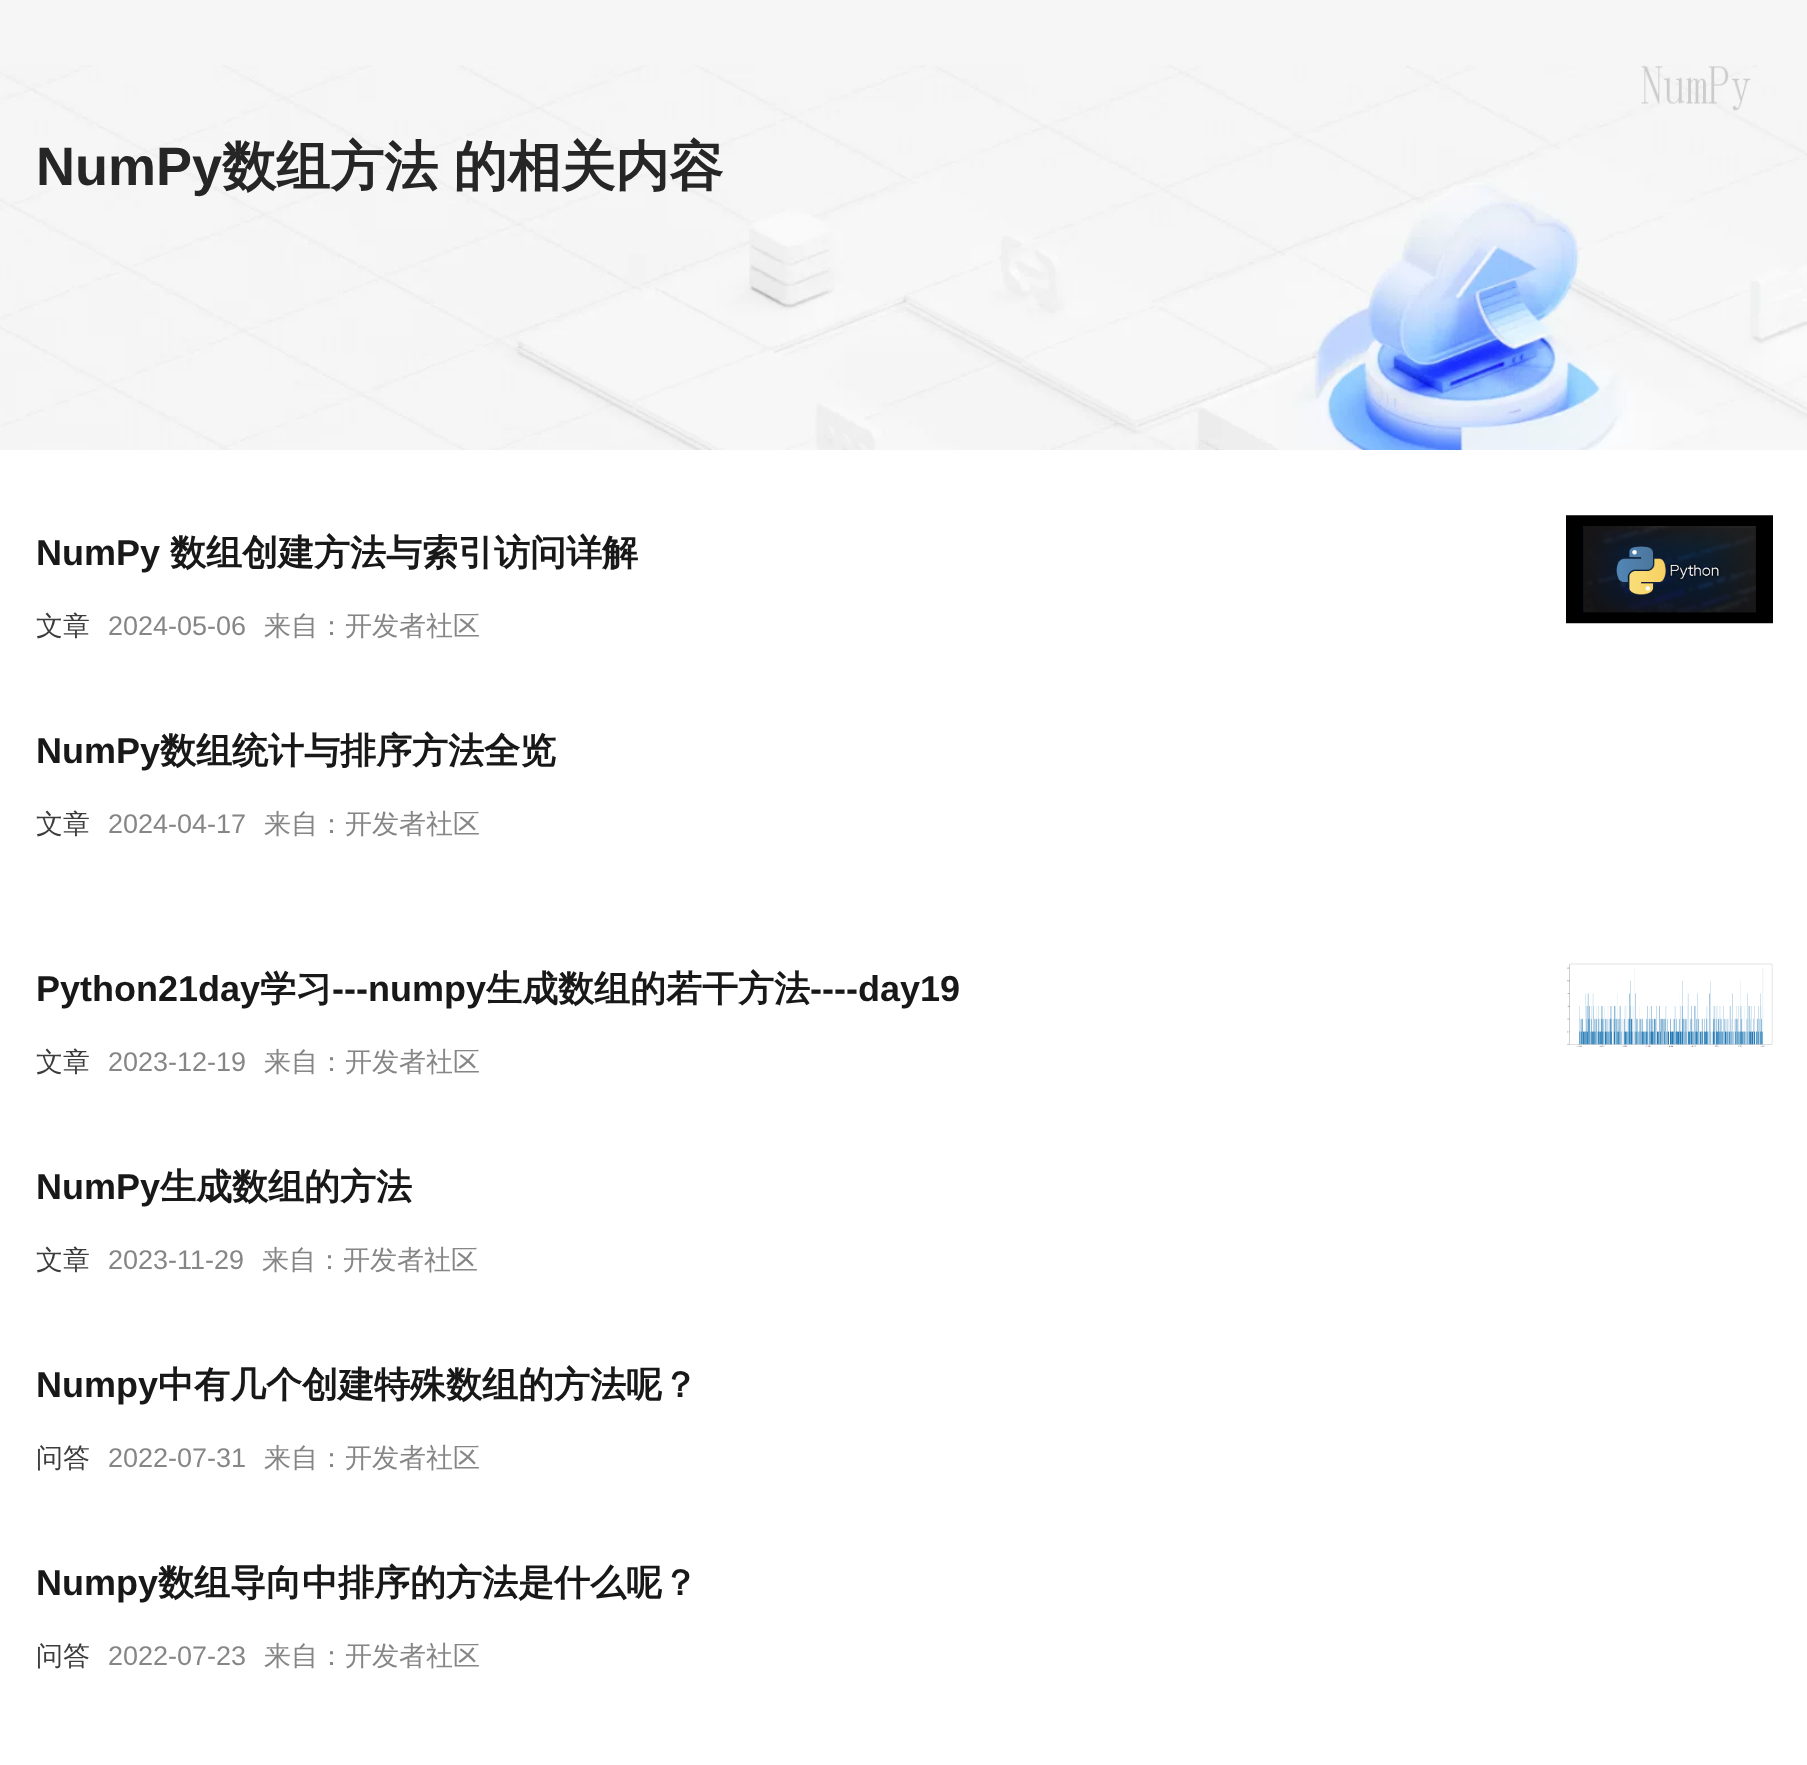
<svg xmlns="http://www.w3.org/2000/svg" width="1807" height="1765">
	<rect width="100%" height="100%" fill="#FFFFFF" />
	<rect x="0" y="0" width="1807" height="66" fill="#F6F6F6" />
	<image x="0" y="65" width="1807" height="385" href="assets/img1.png" />
	<image x="1641" y="66" width="110" height="45" href="assets/img2.png" />
	<text x="36" y="185" font-family="Liberation Sans" font-size="54" font-weight="700" fill="#262626">NumPy</text>
	<text x="222" y="185" word-spacing="-1" font-family="WenQuanYi Zen Hei" font-size="54" font-weight="700" fill="#262626">数组方法 的相关内容</text>
	<text x="36" y="565" font-family="Liberation Sans" font-size="36" font-weight="700" fill="#181818">NumPy</text>
	<text x="170" y="565" font-family="WenQuanYi Zen Hei" font-size="36" font-weight="700" fill="#181818">数组创建方法与索引访问详解</text>
	<text x="36" y="635" font-family="WenQuanYi Zen Hei" font-size="27" font-weight="500" fill="#3D3D3D">文章</text>
	<text x="108" y="635" font-family="Liberation Sans" font-size="27" fill="#868686">2024-05-06</text>
	<text x="264" y="635" font-family="WenQuanYi Zen Hei" font-size="27" font-weight="500" fill="#868686">来自：开发者社区</text>
	<image x="1566" y="515" width="207" height="109" href="assets/img3.png" />
	<text x="36" y="763" font-family="Liberation Sans" font-size="36" font-weight="700" fill="#181818">NumPy</text>
	<text x="160" y="763" font-family="WenQuanYi Zen Hei" font-size="36" font-weight="700" fill="#181818">数组统计与排序方法全览</text>
	<text x="36" y="833" font-family="WenQuanYi Zen Hei" font-size="27" font-weight="500" fill="#3D3D3D">文章</text>
	<text x="108" y="833" font-family="Liberation Sans" font-size="27" fill="#868686">2024-04-17</text>
	<text x="264" y="833" font-family="WenQuanYi Zen Hei" font-size="27" font-weight="500" fill="#868686">来自：开发者社区</text>
	<text x="36" y="1001" font-family="Liberation Sans" font-size="36" font-weight="700" fill="#181818">Python21day</text>
	<text x="260" y="1001" font-family="WenQuanYi Zen Hei" font-size="36" font-weight="700" fill="#181818">学习</text>
	<text x="332" y="1001" font-family="Liberation Sans" font-size="36" font-weight="700" fill="#181818">---numpy</text>
	<text x="486" y="1001" font-family="WenQuanYi Zen Hei" font-size="36" font-weight="700" fill="#181818">生成数组的若干方法</text>
	<text x="810" y="1001" font-family="Liberation Sans" font-size="36" font-weight="700" fill="#181818">----day19</text>
	<text x="36" y="1071" font-family="WenQuanYi Zen Hei" font-size="27" font-weight="500" fill="#3D3D3D">文章</text>
	<text x="108" y="1071" font-family="Liberation Sans" font-size="27" fill="#868686">2023-12-19</text>
	<text x="264" y="1071" font-family="WenQuanYi Zen Hei" font-size="27" font-weight="500" fill="#868686">来自：开发者社区</text>
	<image x="1567" y="963" width="206" height="84" href="assets/img4.png" />
	<text x="36" y="1199" font-family="Liberation Sans" font-size="36" font-weight="700" fill="#181818">NumPy</text>
	<text x="160" y="1199" font-family="WenQuanYi Zen Hei" font-size="36" font-weight="700" fill="#181818">生成数组的方法</text>
	<text x="36" y="1269" font-family="WenQuanYi Zen Hei" font-size="27" font-weight="500" fill="#3D3D3D">文章</text>
	<text x="108" y="1269" font-family="Liberation Sans" font-size="27" fill="#868686">2023-11-29</text>
	<text x="262" y="1269" font-family="WenQuanYi Zen Hei" font-size="27" font-weight="500" fill="#868686">来自：开发者社区</text>
	<text x="36" y="1397" font-family="Liberation Sans" font-size="36" font-weight="700" fill="#181818">Numpy</text>
	<text x="158" y="1397" font-family="WenQuanYi Zen Hei" font-size="36" font-weight="700" fill="#181818">中有几个创建特殊数组的方法呢？</text>
	<text x="36" y="1467" font-family="WenQuanYi Zen Hei" font-size="27" font-weight="500" fill="#3D3D3D">问答</text>
	<text x="108" y="1467" font-family="Liberation Sans" font-size="27" fill="#868686">2022-07-31</text>
	<text x="264" y="1467" font-family="WenQuanYi Zen Hei" font-size="27" font-weight="500" fill="#868686">来自：开发者社区</text>
	<text x="36" y="1595" font-family="Liberation Sans" font-size="36" font-weight="700" fill="#181818">Numpy</text>
	<text x="158" y="1595" font-family="WenQuanYi Zen Hei" font-size="36" font-weight="700" fill="#181818">数组导向中排序的方法是什么呢？</text>
	<text x="36" y="1665" font-family="WenQuanYi Zen Hei" font-size="27" font-weight="500" fill="#3D3D3D">问答</text>
	<text x="108" y="1665" font-family="Liberation Sans" font-size="27" fill="#868686">2022-07-23</text>
	<text x="264" y="1665" font-family="WenQuanYi Zen Hei" font-size="27" font-weight="500" fill="#868686">来自：开发者社区</text>
</svg>
